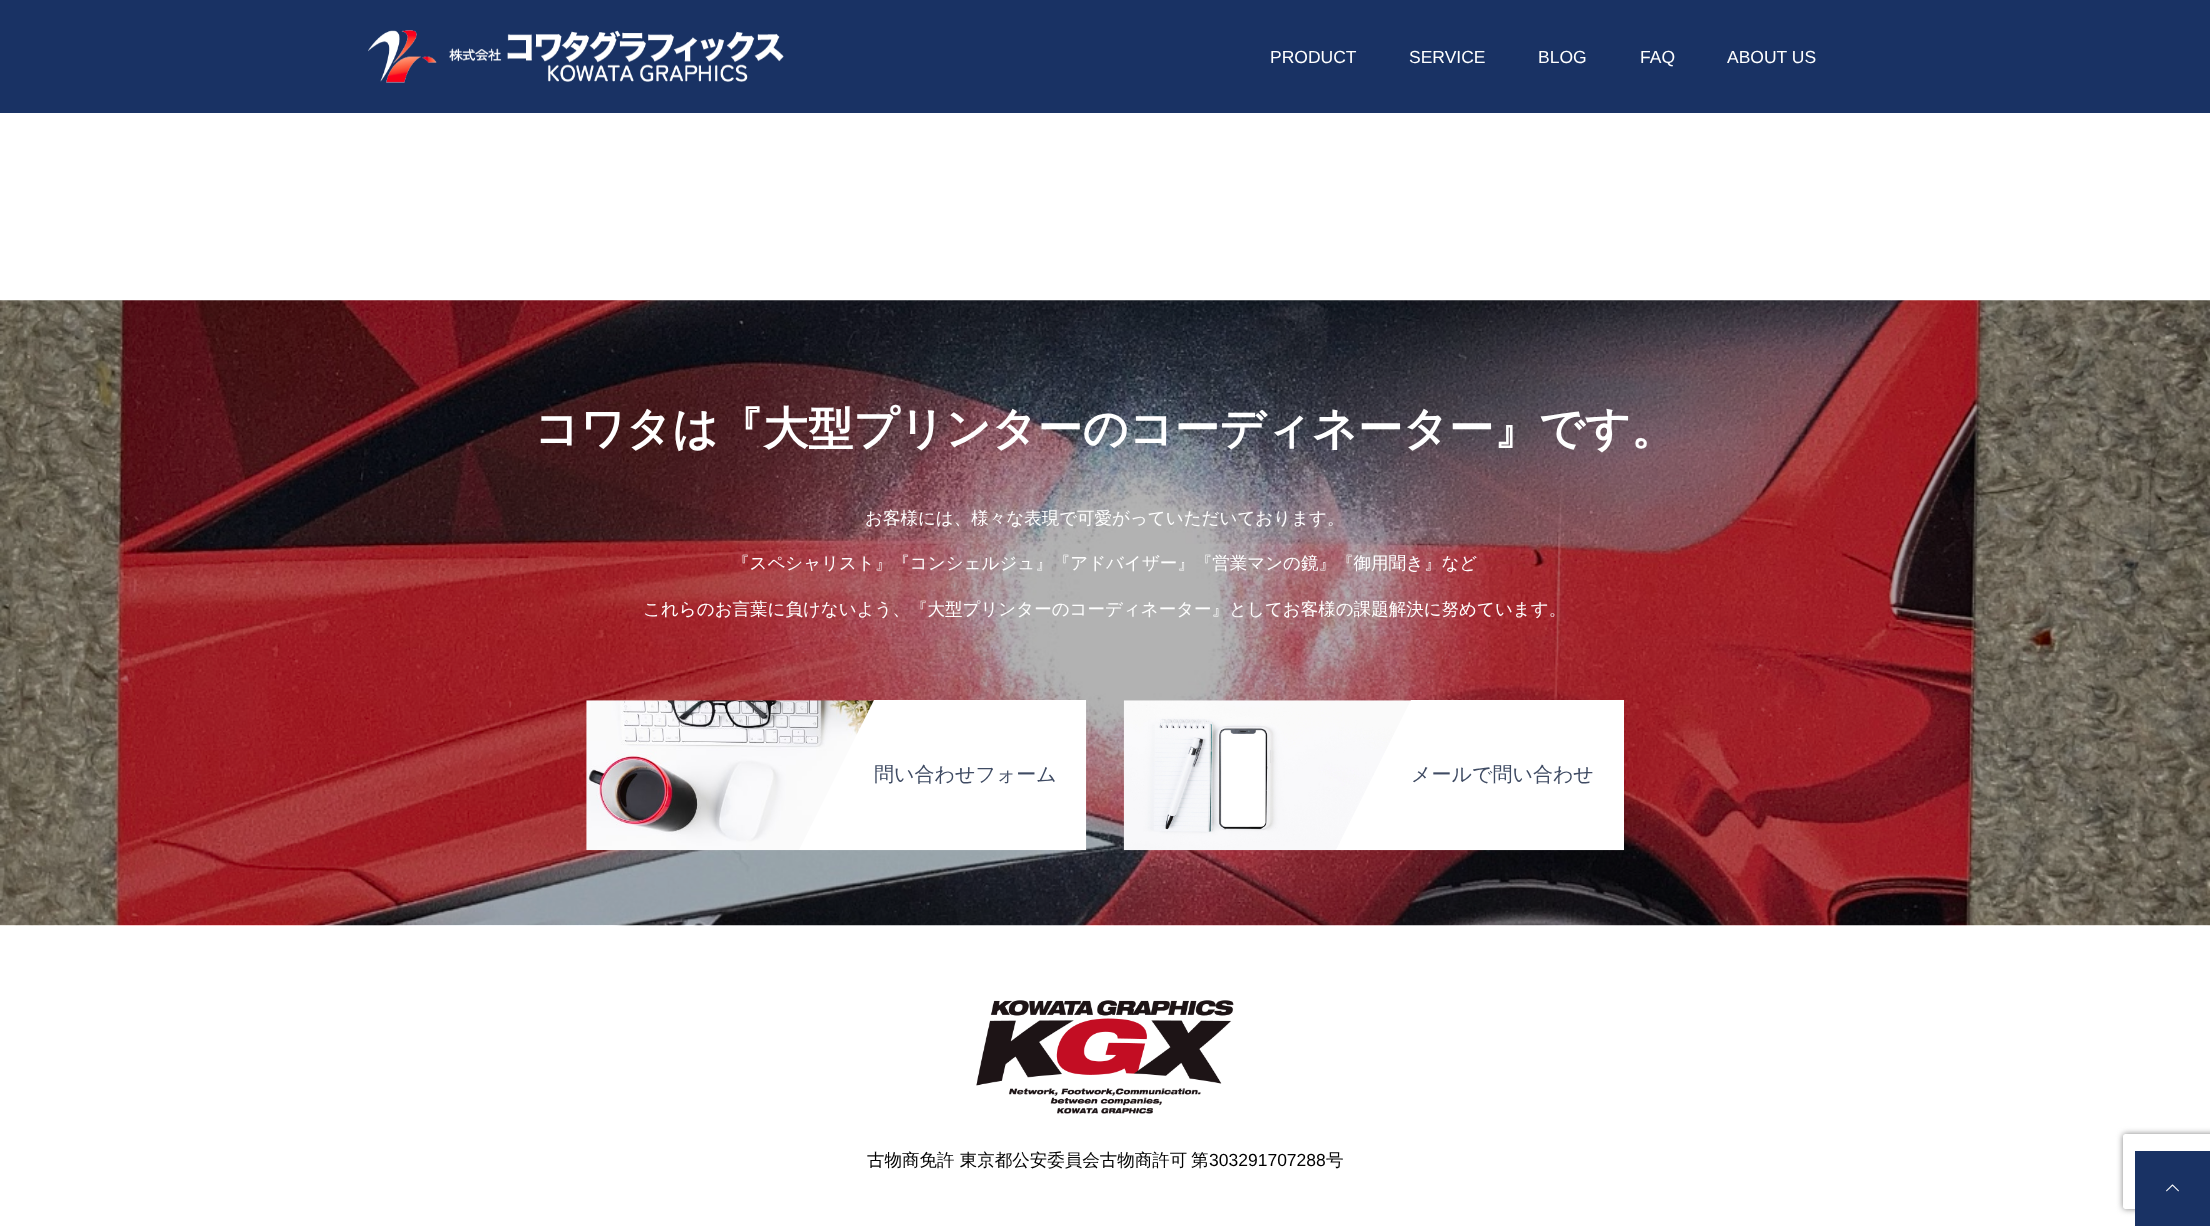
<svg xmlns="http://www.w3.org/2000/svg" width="2210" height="1226">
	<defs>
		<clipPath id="clip1"><rect x="586" y="700" width="500" height="150" /></clipPath>
		<clipPath id="clip2"><rect x="1124" y="700" width="500" height="150" /></clipPath>
		<clipPath id="clip3"><path d="M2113 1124H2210V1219H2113ZM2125.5 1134H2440.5C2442 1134 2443 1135 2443 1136.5V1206.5C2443 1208 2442 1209 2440.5 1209H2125.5C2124 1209 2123 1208 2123 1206.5V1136.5C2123 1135 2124 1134 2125.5 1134Z" clip-rule="evenodd" /></clipPath>
	</defs>
	<rect width="100%" height="100%" fill="#FFFFFF" />
	<rect x="0" y="0" width="2210" height="113" fill="#193264" />
	<image x="368" y="30" width="416" height="53" href="assets/img1.png" />
	<g font-family="Liberation Sans" font-size="17.5" fill="#FFFFFF">
		<text x="1270" y="63">PRODUCT</text>
		<text x="1409" y="63">SERVICE</text>
		<text x="1538" y="63">BLOG</text>
		<text x="1640" y="63">FAQ</text>
		<text x="1727" y="63">ABOUT US</text>
	</g>
	<image x="0" y="300" width="2210" height="626" href="assets/img2.png" />
	<text x="534" y="444" font-family="WenQuanYi Zen Hei" font-size="45" font-weight="700" fill="#FFFFFF">コワタは『大型プリンターのコーディネーター』です。</text>
	<g font-family="WenQuanYi Zen Hei" font-size="17.5" font-weight="500" fill="#FFFFFF">
		<text x="865" y="524">お客様には、様々な表現で可愛がっていただいております。</text>
		<text x="732" y="569">『スペシャリスト』『コンシェルジュ』『アドバイザー』『営業マンの鏡』『御用聞き』など</text>
		<text x="643" y="615">これらのお言葉に負けないよう、『大型プリンターのコーディネーター』としてお客様の課題解決に努めています。</text>
	</g>
	<image x="586" y="700" width="501" height="151" href="assets/img3.png" />
	<rect x="874" y="700" width="212" height="150" fill="#FFFFFF" />
	<g clip-path="url(#clip1)">
		<path d="M874 700V1000L799 850Z" fill="#FFFFFF" />
	</g>
	<text x="874" y="781" font-family="WenQuanYi Zen Hei" font-size="20" font-weight="500" fill="#3F4B63">問い合わせフォーム</text>
	<image x="1123" y="700" width="501" height="151" href="assets/img4.png" />
	<rect x="1411" y="700" width="213" height="150" fill="#FFFFFF" />
	<g clip-path="url(#clip2)">
		<path d="M1411 700V1000L1336 850Z" fill="#FFFFFF" />
	</g>
	<text x="1411" y="781" font-family="WenQuanYi Zen Hei" font-size="20" font-weight="500" fill="#3F4B63">メールで問い合わせ</text>
	<image x="976" y="1000" width="258" height="114" href="assets/img5.png" />
	<g font-family="WenQuanYi Zen Hei" font-size="17.5" font-weight="500" fill="#000000">
		<text x="867" y="1166">古物商免許 東京都公安委員会古物商許可</text>
		<text x="1191" y="1166">第</text>
	</g>
	<text x="1209" y="1166" font-family="Liberation Sans" font-size="17.5" fill="#000000">303291707288</text>
	<text x="1326" y="1166" font-family="WenQuanYi Zen Hei" font-size="17.5" font-weight="500" fill="#000000">号</text>
	<g clip-path="url(#clip3)">
		<rect x="2123" y="1134" width="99" height="75" rx="2.5" fill="#808080" filter="blur(3px)" />
	</g>
	<rect x="2135" y="1151" width="75" height="75" fill="#193264" />
	<image x="2166" y="1184" width="13" height="8" href="assets/img6.png" />
</svg>
